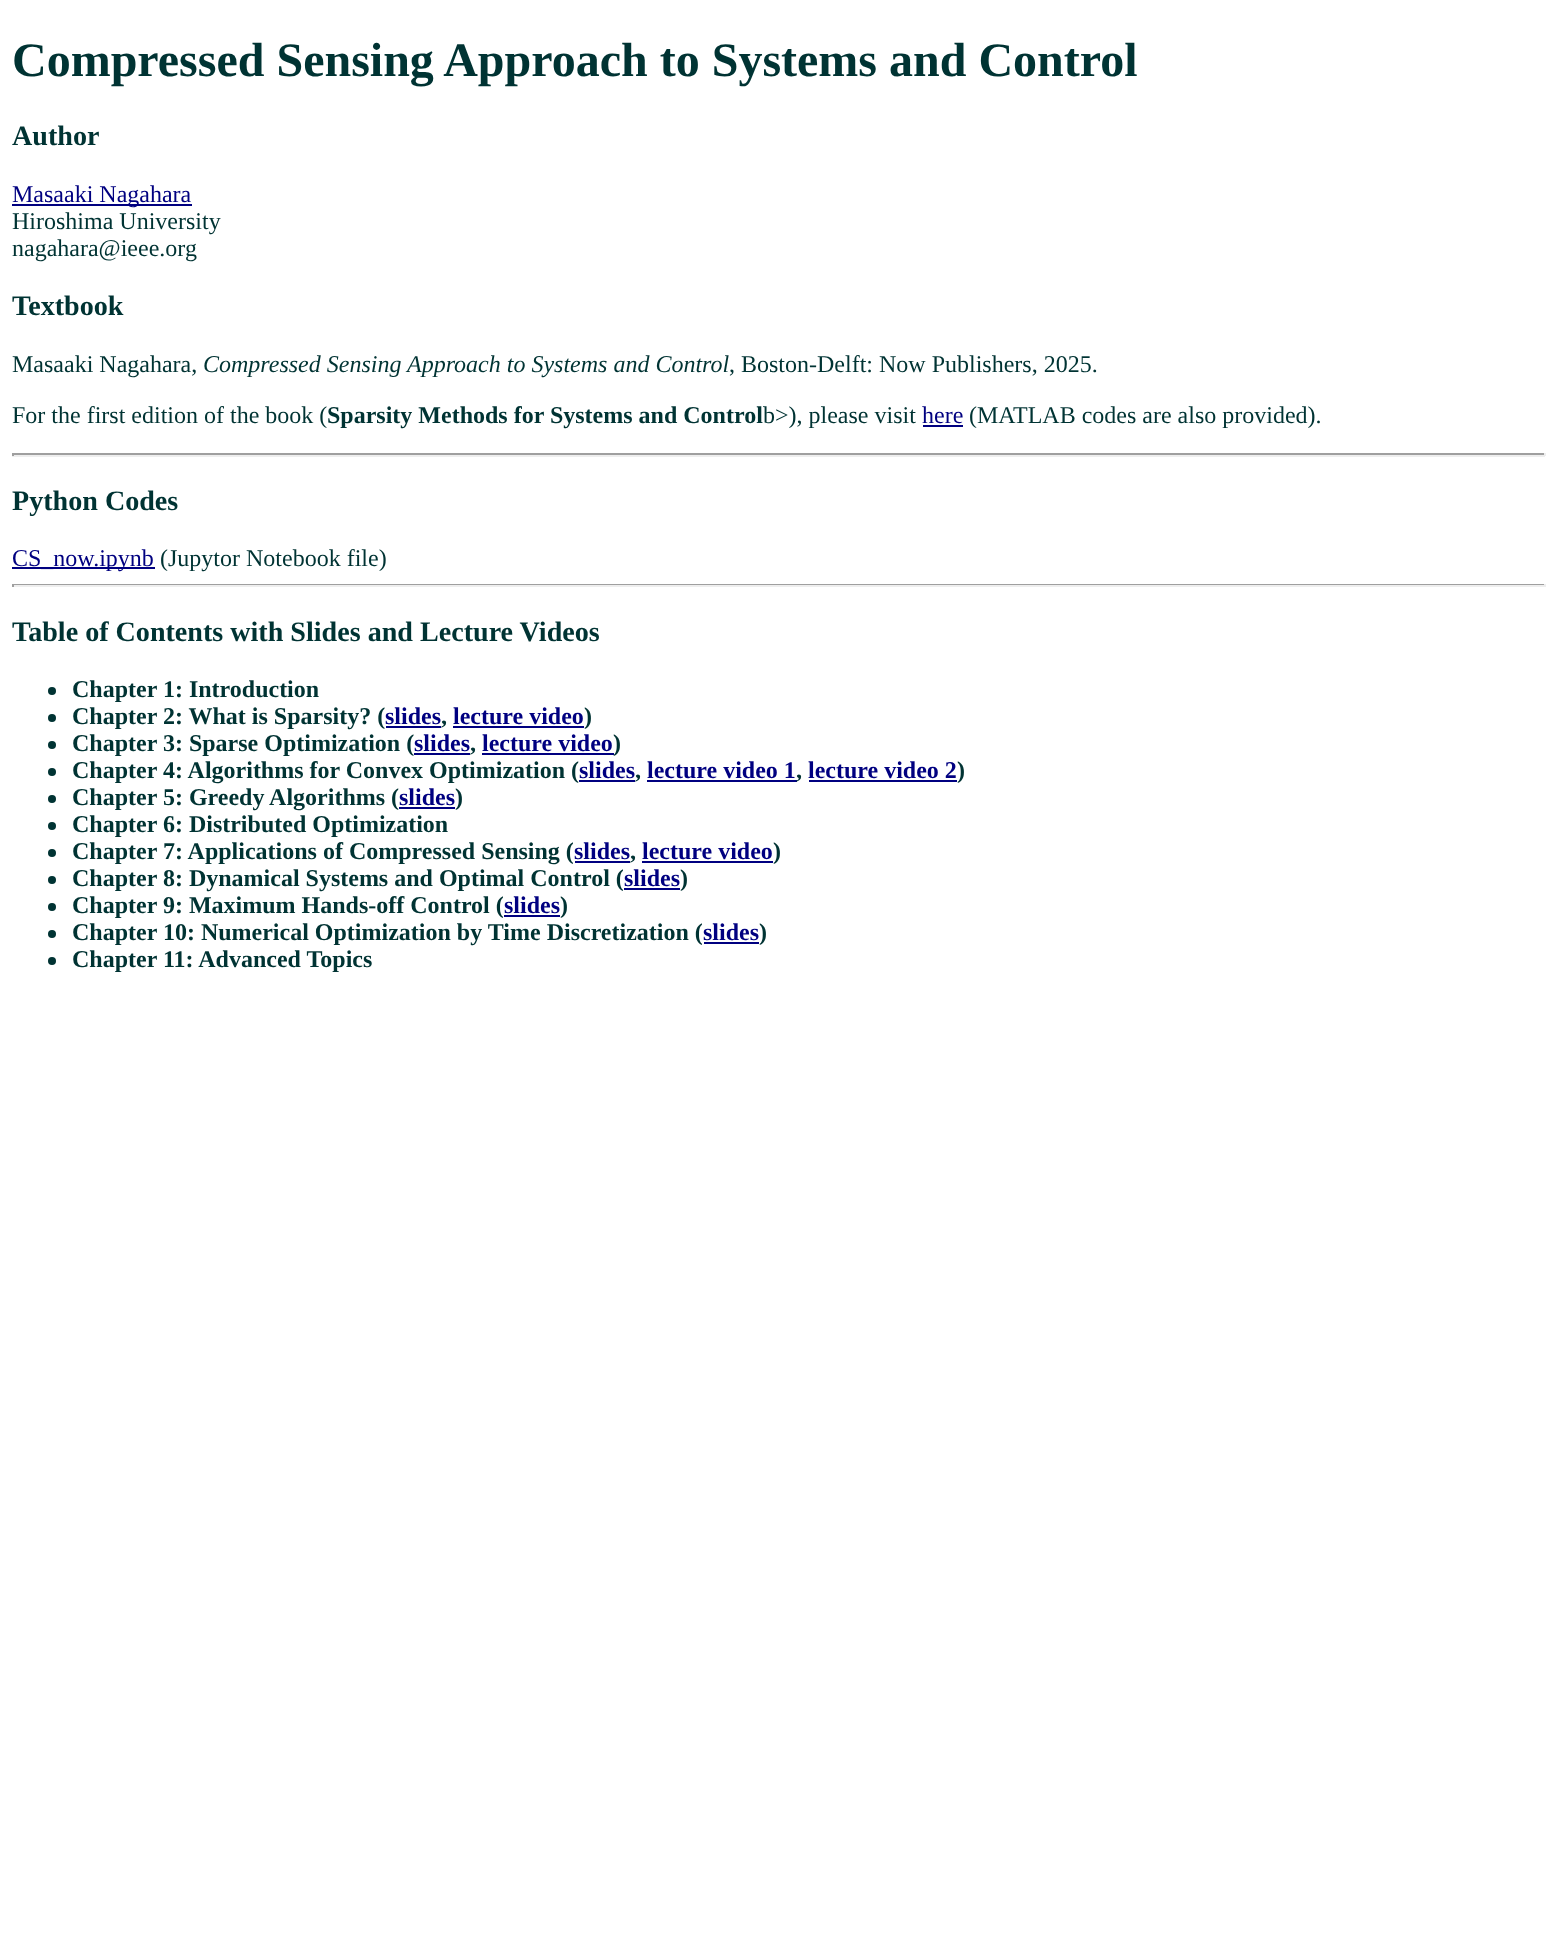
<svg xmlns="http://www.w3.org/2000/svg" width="1557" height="1933">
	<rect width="100%" height="100%" fill="#FFFFFF" />
	<text x="12" y="76" font-family="Liberation Serif" font-size="48" font-weight="700" fill="#003333">Compressed Sensing Approach to Systems and Control</text>
	<text x="12" y="145" font-family="Liberation Serif" font-size="28.1" font-weight="700" fill="#003333">Author</text>
	<rect x="12" y="204" width="180" height="2" fill="#000080" />
	<text x="12" y="202" font-family="Liberation Serif" font-size="24" fill="#000080">Masaaki Nagahara</text>
	<g font-family="Liberation Serif" font-size="24" fill="#003333">
		<text x="12" y="229">Hiroshima University</text>
		<text x="12" y="256">nagahara@ieee.org</text>
	</g>
	<text x="12" y="315" font-family="Liberation Serif" font-size="28.1" font-weight="700" fill="#003333">Textbook</text>
	<text x="12" y="372" font-family="Liberation Serif" font-size="24" fill="#003333">Masaaki Nagahara,</text>
	<text x="203" y="372" font-family="Liberation Serif" font-size="24" font-style="italic" fill="#003333">Compressed Sensing Approach to Systems and Control</text>
	<g font-family="Liberation Serif" font-size="24" fill="#003333">
		<text x="729" y="372">, Boston-Delft: Now Publishers, 2025.</text>
		<text x="12" y="423">For the first edition of the book (</text>
	</g>
	<text x="327" y="423" font-family="Liberation Serif" font-size="24" font-weight="700" fill="#003333">Sparsity Methods for Systems and Control</text>
	<text x="763" y="423" font-family="Liberation Serif" font-size="24" fill="#003333">b&gt;), please visit</text>
	<text x="922" y="423" font-family="Liberation Serif" font-size="24" fill="#000080">here</text>
	<rect x="923" y="425" width="40" height="2" fill="#000080" />
	<text x="969" y="423" font-family="Liberation Serif" font-size="24" fill="#003333">(MATLAB codes are also provided).</text>
	<rect x="12" y="453" width="1533" height="2" fill="#9F9F9F" />
	<rect x="1544" y="453" width="2" height="3" fill="#EEEEEE" />
	<rect x="12" y="455" width="1533" height="2" fill="#EEEEEE" />
	<rect x="12" y="453" width="2" height="3" fill="#9F9F9F" />
	<text x="12" y="510" font-family="Liberation Serif" font-size="28.1" font-weight="700" fill="#003333">Python Codes</text>
	<rect x="12" y="567" width="143" height="2" fill="#000080" />
	<text x="12" y="566" font-family="Liberation Serif" font-size="24" fill="#000080">CS_now.ipynb</text>
	<text x="160" y="566" font-family="Liberation Serif" font-size="24" fill="#003333">(Jupytor Notebook file)</text>
	<rect x="12" y="584" width="1533" height="1" fill="#9F9F9F" />
	<rect x="1544" y="584" width="2" height="3" fill="#EEEEEE" />
	<rect x="12" y="585" width="1533" height="2" fill="#EEEEEE" />
	<rect x="12" y="584" width="2" height="3" fill="#9F9F9F" />
	<text x="12" y="641" font-family="Liberation Serif" font-size="28.1" font-weight="700" fill="#003333">Table of Contents with Slides and Lecture Videos</text>
	<circle cx="52" cy="691" r="4" fill="#003333" />
	<text x="72" y="697" font-family="Liberation Serif" font-size="24" font-weight="700" fill="#003333">Chapter 1: Introduction</text>
	<circle cx="52" cy="718" r="4" fill="#003333" />
	<text x="72" y="724" font-family="Liberation Serif" font-size="24" font-weight="700" fill="#003333">Chapter 2: What is Sparsity? (</text>
	<g font-family="Liberation Serif" font-size="24" font-weight="700" fill="#000080">
		<text x="385" y="724">slides</text>
		<text x="453" y="724">lecture video</text>
	</g>
	<g font-family="Liberation Serif" font-size="24" font-weight="700" fill="#003333">
		<text x="584" y="724">)</text>
		<text x="441" y="724">,</text>
	</g>
	<rect x="386" y="726" width="55" height="2" fill="#000080" />
	<rect x="453" y="726" width="131" height="2" fill="#000080" />
	<circle cx="52" cy="745" r="4" fill="#003333" />
	<text x="72" y="751" font-family="Liberation Serif" font-size="24" font-weight="700" fill="#003333">Chapter 3: Sparse Optimization (</text>
	<g font-family="Liberation Serif" font-size="24" font-weight="700" fill="#000080">
		<text x="414" y="751">slides</text>
		<text x="482" y="751">lecture video</text>
	</g>
	<rect x="482" y="753" width="132" height="2" fill="#000080" />
	<g font-family="Liberation Serif" font-size="24" font-weight="700" fill="#003333">
		<text x="613" y="751">)</text>
		<text x="470" y="751">,</text>
	</g>
	<rect x="414" y="753" width="56" height="2" fill="#000080" />
	<circle cx="52" cy="772" r="4" fill="#003333" />
	<text x="72" y="778" font-family="Liberation Serif" font-size="24" font-weight="700" fill="#003333">Chapter 4: Algorithms for Convex Optimization (</text>
	<g font-family="Liberation Serif" font-size="24" font-weight="700" fill="#000080">
		<text x="579" y="778">slides</text>
		<text x="647" y="778">lecture video 1</text>
		<text x="808" y="778">lecture video 2</text>
	</g>
	<g font-family="Liberation Serif" font-size="24" font-weight="700" fill="#003333">
		<text x="957" y="778">)</text>
		<text x="635" y="778">,</text>
	</g>
	<rect x="579" y="780" width="56" height="2" fill="#000080" />
	<rect x="647" y="780" width="150" height="2" fill="#000080" />
	<text x="796" y="778" font-family="Liberation Serif" font-size="24" font-weight="700" fill="#003333">,</text>
	<rect x="809" y="780" width="148" height="2" fill="#000080" />
	<circle cx="52" cy="799" r="4" fill="#003333" />
	<text x="72" y="805" font-family="Liberation Serif" font-size="24" font-weight="700" fill="#003333">Chapter 5: Greedy Algorithms (</text>
	<rect x="399" y="807" width="56" height="2" fill="#000080" />
	<text x="399" y="805" font-family="Liberation Serif" font-size="24" font-weight="700" fill="#000080">slides</text>
	<text x="455" y="805" font-family="Liberation Serif" font-size="24" font-weight="700" fill="#003333">)</text>
	<circle cx="52" cy="826" r="4" fill="#003333" />
	<text x="72" y="832" font-family="Liberation Serif" font-size="24" font-weight="700" fill="#003333">Chapter 6: Distributed Optimization</text>
	<circle cx="52" cy="853" r="4" fill="#003333" />
	<text x="72" y="859" font-family="Liberation Serif" font-size="24" font-weight="700" fill="#003333">Chapter 7: Applications of Compressed Sensing (</text>
	<g font-family="Liberation Serif" font-size="24" font-weight="700" fill="#000080">
		<text x="574" y="859">slides</text>
		<text x="642" y="859">lecture video</text>
	</g>
	<g font-family="Liberation Serif" font-size="24" font-weight="700" fill="#003333">
		<text x="773" y="859">)</text>
		<text x="630" y="859">,</text>
	</g>
	<rect x="575" y="861" width="55" height="2" fill="#000080" />
	<rect x="642" y="861" width="131" height="2" fill="#000080" />
	<circle cx="52" cy="880" r="4" fill="#003333" />
	<text x="72" y="886" font-family="Liberation Serif" font-size="24" font-weight="700" fill="#003333">Chapter 8: Dynamical Systems and Optimal Control (</text>
	<rect x="624" y="888" width="56" height="2" fill="#000080" />
	<text x="624" y="886" font-family="Liberation Serif" font-size="24" font-weight="700" fill="#000080">slides</text>
	<text x="680" y="886" font-family="Liberation Serif" font-size="24" font-weight="700" fill="#003333">)</text>
	<circle cx="52" cy="907" r="4" fill="#003333" />
	<text x="72" y="913" font-family="Liberation Serif" font-size="24" font-weight="700" fill="#003333">Chapter 9: Maximum Hands-off Control (</text>
	<text x="504" y="913" font-family="Liberation Serif" font-size="24" font-weight="700" fill="#000080">slides</text>
	<text x="560" y="913" font-family="Liberation Serif" font-size="24" font-weight="700" fill="#003333">)</text>
	<rect x="504" y="915" width="56" height="2" fill="#000080" />
	<circle cx="52" cy="934" r="4" fill="#003333" />
	<text x="72" y="940" font-family="Liberation Serif" font-size="24" font-weight="700" fill="#003333">Chapter 10: Numerical Optimization by Time Discretization (</text>
	<text x="703" y="940" font-family="Liberation Serif" font-size="24" font-weight="700" fill="#000080">slides</text>
	<text x="759" y="940" font-family="Liberation Serif" font-size="24" font-weight="700" fill="#003333">)</text>
	<rect x="704" y="942" width="55" height="2" fill="#000080" />
	<circle cx="52" cy="961" r="4" fill="#003333" />
	<text x="72" y="967" font-family="Liberation Serif" font-size="24" font-weight="700" fill="#003333">Chapter 11: Advanced Topics</text>
</svg>
